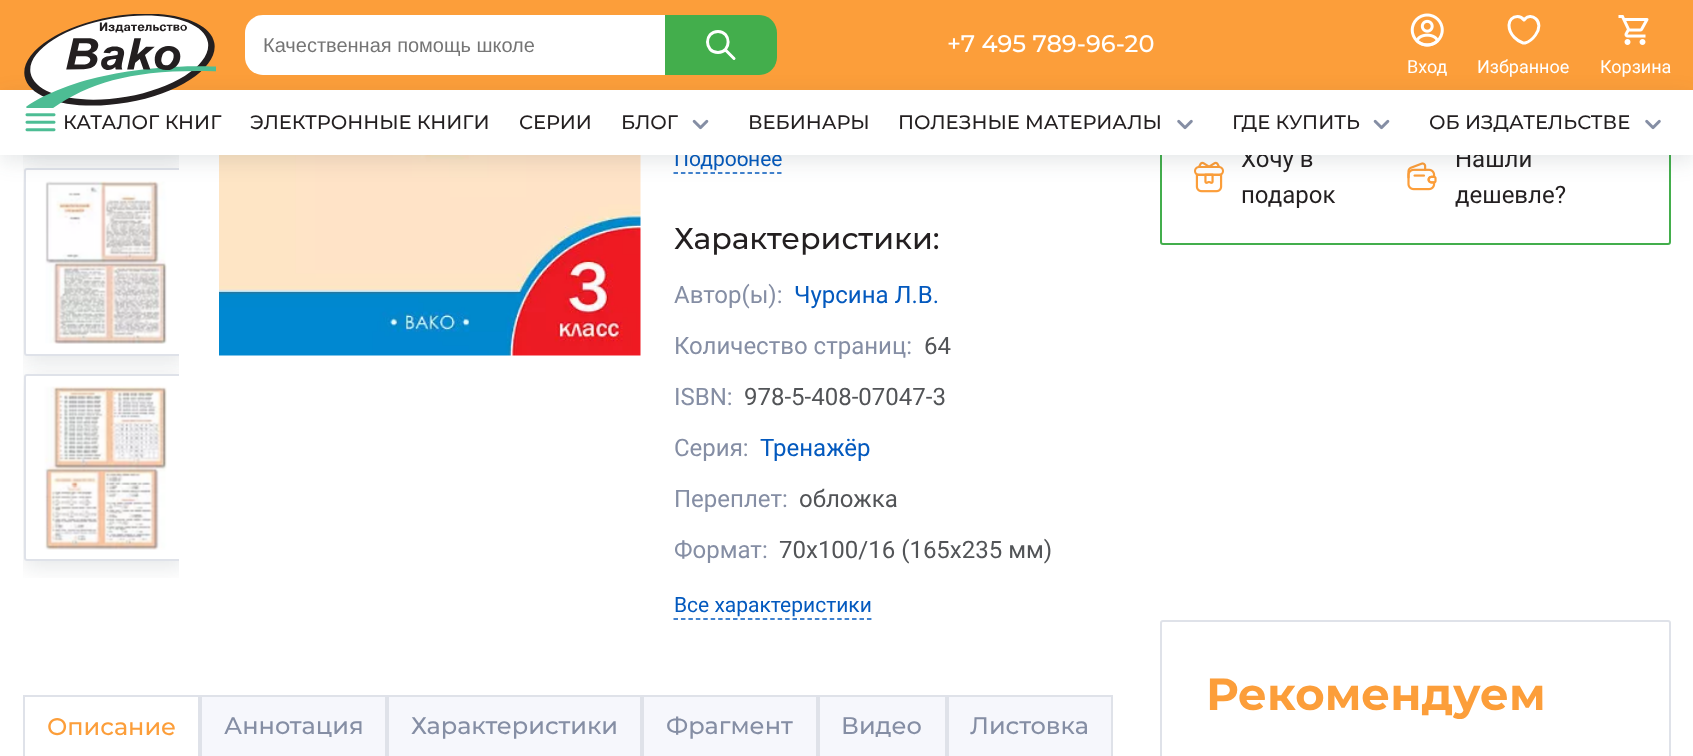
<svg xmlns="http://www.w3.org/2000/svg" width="1693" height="756">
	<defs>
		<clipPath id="clip1"><rect x="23" y="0" width="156" height="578" /></clipPath>
		<clipPath id="clip2"><rect x="23" y="0" width="156" height="578" /></clipPath>
		<clipPath id="clip3"><path d="M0 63H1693V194H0ZM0 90H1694V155H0Z" clip-rule="evenodd" /></clipPath>
	</defs>
	<rect width="100%" height="100%" fill="#FFFFFF" />
	<g clip-path="url(#clip1)">
		<rect x="24" y="-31" width="162" height="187" rx="3" fill="#2C3942" fill-opacity="0.12" filter="blur(10.5px)" />
		<rect x="24" y="174" width="162" height="188" rx="3" fill="#2C3942" fill-opacity="0.12" filter="blur(10.5px)" />
	</g>
	<text x="674" y="166" font-family="Roboto" font-size="21" fill="#0359BE">Подробнее</text>
	<rect x="1161" y="-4" width="509" height="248" rx="2" fill="none" stroke="#43AE4C" stroke-width="2" />
	<g font-family="Roboto" font-size="24" fill="#231F20">
		<text x="1241" y="167">Хочу в</text>
		<text x="1455" y="167">Нашли</text>
	</g>
	<rect x="23" y="90" width="1648" height="65" fill="#FFFFFF" />
	<rect x="0" y="0" width="1693" height="90" fill="#FC9E3A" />
	<path d="M27 168H179V356H27C25.5 356 24 354.5 24 353V171C24 169.5 25.5 168 27 168Z" fill="#FFFFFF" />
	<g clip-path="url(#clip2)">
		<rect x="25" y="169" width="160" height="186" rx="2" fill="none" stroke="#DFE2E9" stroke-width="2" />
	</g>
	<image x="45" y="181" width="122" height="163" href="assets/img7.png" />
	<image x="219" y="155" width="422" height="201" href="assets/img9.png" />
	<path d="M673.5 173H781.5" fill="none" stroke="#0359BE" stroke-width="1.5" stroke-dasharray="4.5 2.9" />
	<image x="1194" y="161" width="30" height="32" href="assets/img10.png" />
	<image x="1407" y="162" width="30" height="29" href="assets/img11.png" />
	<g clip-path="url(#clip3)">
		<rect x="0" y="96" width="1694" height="65" fill="#2C3942" fill-opacity="0.12" filter="blur(10.5px)" />
	</g>
	<image x="24" y="14" width="192" height="94" href="assets/img1.png" />
	<path d="M263 15H665V75H263C253 75 245 67 245 57V33C245 23 253 15 263 15Z" fill="#FFFFFF" />
	<text x="263" y="52" font-family="Liberation Sans" font-size="20" fill="#757575">Качественная помощь школе</text>
	<path d="M665 15H759C769 15 777 23 777 33V57C777 67 769 75 759 75H665Z" fill="#43AE4C" />
	<path d="M718 52.5C731.5 52.5 731.5 31.5 718 31.5C704 31.5 704 52.5 718 52.5ZM734 58.5L725 49.5" fill="none" stroke="#FFFFFF" stroke-width="3" stroke-linecap="round" stroke-linejoin="round" />
	<text x="947" y="52" font-family="Montserrat" font-size="24" font-weight="500" fill="#FFFFFF">+7 495 789-96-20</text>
	<image x="1410" y="13" width="34" height="34" href="assets/img2.png" />
	<text x="1407" y="73" font-family="Roboto" font-size="18" fill="#FFFFFF">Вход</text>
	<path d="M1525 43H1523C1518.5 41.5 1509 35.5 1509 25C1509 20.5 1512.5 16.5 1517.5 16.5C1520 16.5 1522.5 18 1524 20C1530.5 11 1545.5 21 1535.5 35C1533 38.5 1529 42 1525 43Z" fill="none" stroke="#FFFFFF" stroke-width="3" stroke-linecap="round" stroke-linejoin="round" />
	<text x="1477" y="73" font-family="Roboto" font-size="18" fill="#FFFFFF">Избранное</text>
	<image x="1618" y="15" width="31" height="30" href="assets/img3.png" />
	<text x="1600" y="73" font-family="Roboto" font-size="18" fill="#FFFFFF">Корзина</text>
	<image x="25" y="113" width="31" height="19" href="assets/img4.png" />
	<g font-family="Montserrat" font-size="19.5" font-weight="500" fill="#231F20">
		<text x="63" y="129">КАТАЛОГ КНИГ</text>
		<text x="250" y="129">ЭЛЕКТРОННЫЕ КНИГИ</text>
		<text x="519" y="129">СЕРИИ</text>
		<text x="621" y="129">БЛОГ</text>
	</g>
	<image x="692" y="119" width="17" height="11" href="assets/img5.png" />
	<g font-family="Montserrat" font-size="19.5" font-weight="500" fill="#231F20">
		<text x="748" y="129">ВЕБИНАРЫ</text>
		<text x="898" y="129">ПОЛЕЗНЫЕ МАТЕРИАЛЫ</text>
	</g>
	<image x="1177" y="119" width="16" height="11" href="assets/img6.png" />
	<text x="1232" y="129" font-family="Montserrat" font-size="19.5" font-weight="500" fill="#231F20">ГДЕ КУПИТЬ</text>
	<image x="1373" y="119" width="17" height="11" href="assets/img5.png" />
	<text x="1429" y="129" font-family="Montserrat" font-size="19.5" font-weight="500" fill="#231F20">ОБ ИЗДАТЕЛЬСТВЕ</text>
	<image x="1645" y="119" width="16" height="11" href="assets/img6.png" />
	<g clip-path="url(#clip1)">
		<rect x="24" y="380" width="162" height="187" rx="3" fill="#2C3942" fill-opacity="0.12" filter="blur(10.5px)" />
	</g>
	<path d="M27 374H179V561H27C25.5 561 24 559.5 24 558V377C24 375.5 25.5 374 27 374Z" fill="#FFFFFF" />
	<g clip-path="url(#clip2)">
		<rect x="25" y="375" width="160" height="185" rx="2" fill="none" stroke="#DFE2E9" stroke-width="2" />
	</g>
	<image x="44" y="386" width="123" height="164" href="assets/img8.png" />
	<text x="674" y="249" font-family="Montserrat" font-size="30" font-weight="500" fill="#231F20">Характеристики:</text>
	<text x="674" y="303" font-family="Roboto" font-size="24" fill="#858EA4">Автор(ы):</text>
	<text x="794" y="303" font-family="Roboto" font-size="24" fill="#0359BE">Чурсина Л.В.</text>
	<text x="674" y="354" font-family="Roboto" font-size="24" fill="#858EA4">Количество страниц:</text>
	<text x="924" y="354" font-family="Roboto" font-size="24" fill="#525457">64</text>
	<text x="674" y="405" font-family="Roboto" font-size="24" fill="#858EA4">ISBN:</text>
	<text x="744" y="405" font-family="Roboto" font-size="24" fill="#525457">978-5-408-07047-3</text>
	<text x="674" y="456" font-family="Roboto" font-size="24" fill="#858EA4">Серия:</text>
	<text x="760" y="456" font-family="Roboto" font-size="24" fill="#0359BE">Тренажёр</text>
	<text x="674" y="507" font-family="Roboto" font-size="24" fill="#858EA4">Переплет:</text>
	<text x="799" y="507" font-family="Roboto" font-size="24" fill="#525457">обложка</text>
	<text x="674" y="558" font-family="Roboto" font-size="24" fill="#858EA4">Формат:</text>
	<text x="779" y="558" font-family="Roboto" font-size="24" fill="#525457">70х100/16 (165x235 мм)</text>
	<path d="M673.5 619H871.5" fill="none" stroke="#0359BE" stroke-width="1.5" stroke-dasharray="4.5 2.94" />
	<text x="674" y="612" font-family="Roboto" font-size="21" fill="#0359BE">Все характеристики</text>
	<g font-family="Roboto" font-size="24" fill="#231F20">
		<text x="1241" y="203">подарок</text>
		<text x="1455" y="203">дешевле?</text>
	</g>
	<rect x="1161" y="621" width="509" height="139" rx="2" fill="none" stroke="#DFE2E9" stroke-width="2" />
	<text x="1206" y="710" font-family="Montserrat" font-size="45" font-weight="700" fill="#FC9E3A">Рекомендуем</text>
	<rect x="23" y="695" width="177" height="2" fill="#DFE2E9" />
	<rect x="198" y="695" width="2" height="61" fill="#DFE2E9" />
	<rect x="23" y="695" width="2" height="61" fill="#DFE2E9" />
	<text x="47" y="735" font-family="Montserrat" font-size="24" font-weight="500" fill="#FC9E3A">Описание</text>
	<rect x="201" y="696" width="185" height="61" fill="#F6F7FC" stroke="#DFE2E9" stroke-width="2" />
	<text x="224" y="734" font-family="Montserrat" font-size="24" font-weight="500" fill="#858EA4">Аннотация</text>
	<rect x="388" y="696" width="253" height="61" fill="#F6F7FC" stroke="#DFE2E9" stroke-width="2" />
	<text x="411" y="734" font-family="Montserrat" font-size="24" font-weight="500" fill="#858EA4">Характеристики</text>
	<rect x="643" y="696" width="174" height="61" fill="#F6F7FC" stroke="#DFE2E9" stroke-width="2" />
	<text x="666" y="734" font-family="Montserrat" font-size="24" font-weight="500" fill="#858EA4">Фрагмент</text>
	<rect x="819" y="696" width="127" height="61" fill="#F6F7FC" stroke="#DFE2E9" stroke-width="2" />
	<text x="841" y="734" font-family="Montserrat" font-size="24" font-weight="500" fill="#858EA4">Видео</text>
	<rect x="948" y="696" width="164" height="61" fill="#F6F7FC" stroke="#DFE2E9" stroke-width="2" />
	<text x="970" y="734" font-family="Montserrat" font-size="24" font-weight="500" fill="#858EA4">Листовка</text>
</svg>
